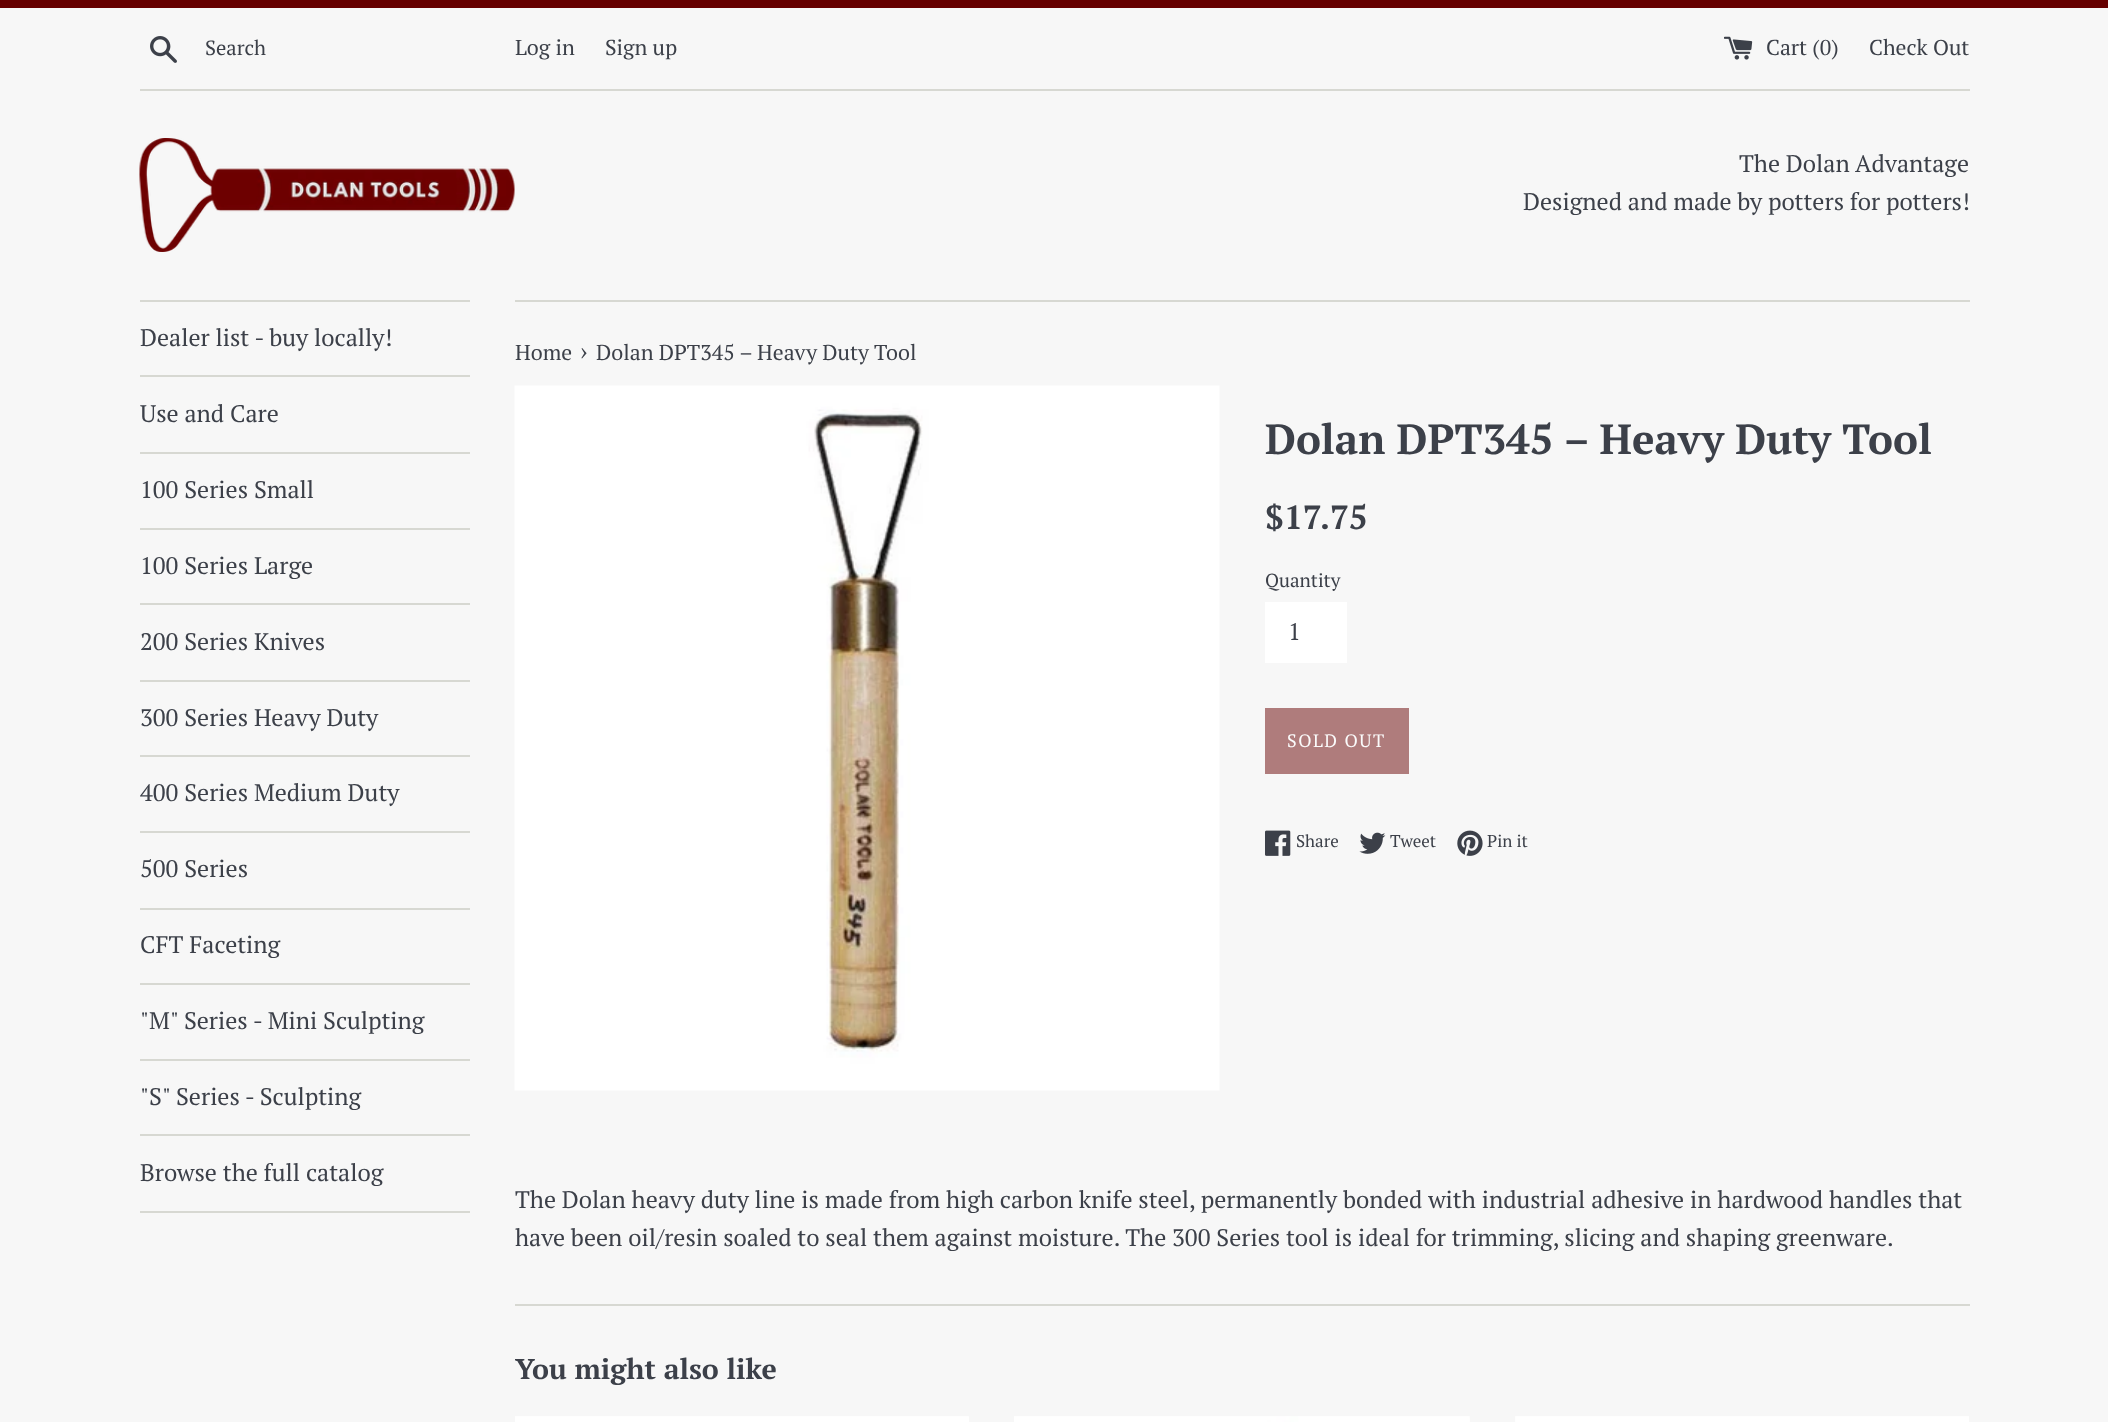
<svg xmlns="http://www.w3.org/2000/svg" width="2108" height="1422">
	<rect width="100%" height="100%" fill="#F7F7F7" />
	<rect x="0" y="0" width="2108" height="8" fill="#660000" />
	<image x="150" y="36" width="27" height="27" href="assets/img1.png" />
	<text x="205" y="55" font-family="PT Serif" font-size="20.5" fill="#3C4049">Search</text>
	<g font-family="PT Serif" font-size="21.6" fill="#3C4049">
		<text x="515" y="55">Log in</text>
		<text x="605" y="55">Sign up</text>
	</g>
	<image x="1724" y="36" width="29" height="24" href="assets/img2.png" />
	<g font-family="PT Serif" font-size="21.6" fill="#3C4049">
		<text x="1766" y="55">Cart (0)</text>
		<text x="1869" y="55">Check Out</text>
	</g>
	<rect x="140" y="89" width="1830" height="2" fill="#D7D8D2" />
	<image x="139" y="138" width="376" height="114" href="assets/img3.png" />
	<g font-family="PT Serif" font-size="24" fill="#3C4049">
		<text x="1739" y="172">The Dolan Advantage</text>
		<text x="1523" y="210">Designed and made by potters for potters!</text>
	</g>
	<rect x="140" y="300" width="330" height="2" fill="#D7D8D2" />
	<rect x="140" y="375" width="330" height="2" fill="#D7D8D2" />
	<text x="140" y="346" font-family="PT Serif" font-size="24" fill="#3C4049">Dealer list - buy locally!</text>
	<rect x="140" y="452" width="330" height="2" fill="#D7D8D2" />
	<text x="140" y="422" font-family="PT Serif" font-size="24" fill="#3C4049">Use and Care</text>
	<rect x="140" y="528" width="330" height="2" fill="#D7D8D2" />
	<text x="140" y="498" font-family="PT Serif" font-size="24" fill="#3C4049">100 Series Small</text>
	<rect x="140" y="603" width="330" height="2" fill="#D7D8D2" />
	<text x="140" y="574" font-family="PT Serif" font-size="24" fill="#3C4049">100 Series Large</text>
	<rect x="140" y="680" width="330" height="2" fill="#D7D8D2" />
	<text x="140" y="650" font-family="PT Serif" font-size="24" fill="#3C4049">200 Series Knives</text>
	<rect x="140" y="755" width="330" height="2" fill="#D7D8D2" />
	<text x="140" y="726" font-family="PT Serif" font-size="24" fill="#3C4049">300 Series Heavy Duty</text>
	<rect x="140" y="831" width="330" height="2" fill="#D7D8D2" />
	<text x="140" y="801" font-family="PT Serif" font-size="24" fill="#3C4049">400 Series Medium Duty</text>
	<rect x="140" y="908" width="330" height="2" fill="#D7D8D2" />
	<text x="140" y="877" font-family="PT Serif" font-size="24" fill="#3C4049">500 Series</text>
	<rect x="140" y="983" width="330" height="2" fill="#D7D8D2" />
	<text x="140" y="953" font-family="PT Serif" font-size="24" fill="#3C4049">CFT Faceting</text>
	<rect x="140" y="1059" width="330" height="2" fill="#D7D8D2" />
	<text x="140" y="1029" font-family="PT Serif" font-size="24" fill="#3C4049">"M" Series - Mini Sculpting</text>
	<rect x="140" y="1134" width="330" height="2" fill="#D7D8D2" />
	<text x="140" y="1105" font-family="PT Serif" font-size="24" fill="#3C4049">"S" Series - Sculpting</text>
	<rect x="140" y="1211" width="330" height="2" fill="#D7D8D2" />
	<text x="140" y="1181" font-family="PT Serif" font-size="24" fill="#3C4049">Browse the full catalog</text>
	<rect x="515" y="300" width="1455" height="2" fill="#D7D8D2" />
	<text x="515" y="360" font-family="PT Serif" font-size="21.6" fill="#3C4049">Home</text>
	<text x="580" y="360" font-family="PT Serif" font-size="26" fill="#3C4049">›</text>
	<text x="596" y="360" font-family="PT Serif" font-size="21.6" fill="#3C4049">Dolan DPT345 – Heavy Duty Tool</text>
	<image x="514" y="385" width="706" height="706" href="assets/img4.png" />
	<text x="1265" y="454" font-family="PT Serif" font-size="42" font-weight="700" fill="#3C4049">Dolan DPT345 – Heavy Duty Tool</text>
	<text x="1265" y="529" font-family="PT Serif" font-size="33.5" font-weight="700" fill="#3C4049">$17.75</text>
	<text x="1265" y="587" font-family="PT Serif" font-size="19" fill="#3C4049">Quantity</text>
	<rect x="1265" y="602" width="82" height="61" fill="#FFFFFF" />
	<text x="1288" y="640" font-family="PT Serif" font-size="24" fill="#3C4049">1</text>
	<rect x="1265" y="708" width="144" height="66" fill="#AF7C7C" />
	<text x="1287" y="747" font-family="PT Serif" font-size="18" letter-spacing="1.5" fill="#FBFBFB">SOLD OUT</text>
	<image x="1265" y="830" width="26" height="26" href="assets/img5.png" />
	<text x="1296" y="847" font-family="PT Serif" font-size="17" fill="#3C4049">Share</text>
	<image x="1359" y="832" width="27" height="22" href="assets/img6.png" />
	<text x="1390" y="847" font-family="PT Serif" font-size="17" fill="#3C4049">Tweet</text>
	<image x="1457" y="830" width="26" height="26" href="assets/img7.png" />
	<text x="1487" y="847" font-family="PT Serif" font-size="17" fill="#3C4049">Pin it</text>
	<g font-family="PT Serif" font-size="24" fill="#3C4049">
		<text x="515" y="1208">The Dolan heavy duty line is made from high carbon knife steel, permanently bonded with industrial adhesive in hardwood handles that</text>
		<text x="515" y="1246">have been oil/resin soaled to seal them against moisture. The 300 Series tool is ideal for trimming, slicing and shaping greenware.</text>
	</g>
	<rect x="515" y="1304" width="1455" height="2" fill="#D7D8D2" />
	<text x="515" y="1379" font-family="PT Serif" font-size="28.5" font-weight="700" fill="#3C4049">You might also like</text>
	<image x="515" y="1416" width="454" height="6" href="assets/img8.png" />
	<image x="1014" y="1416" width="456" height="6" href="assets/img9.png" />
	<image x="1515" y="1416" width="454" height="6" href="assets/img10.png" />
</svg>
